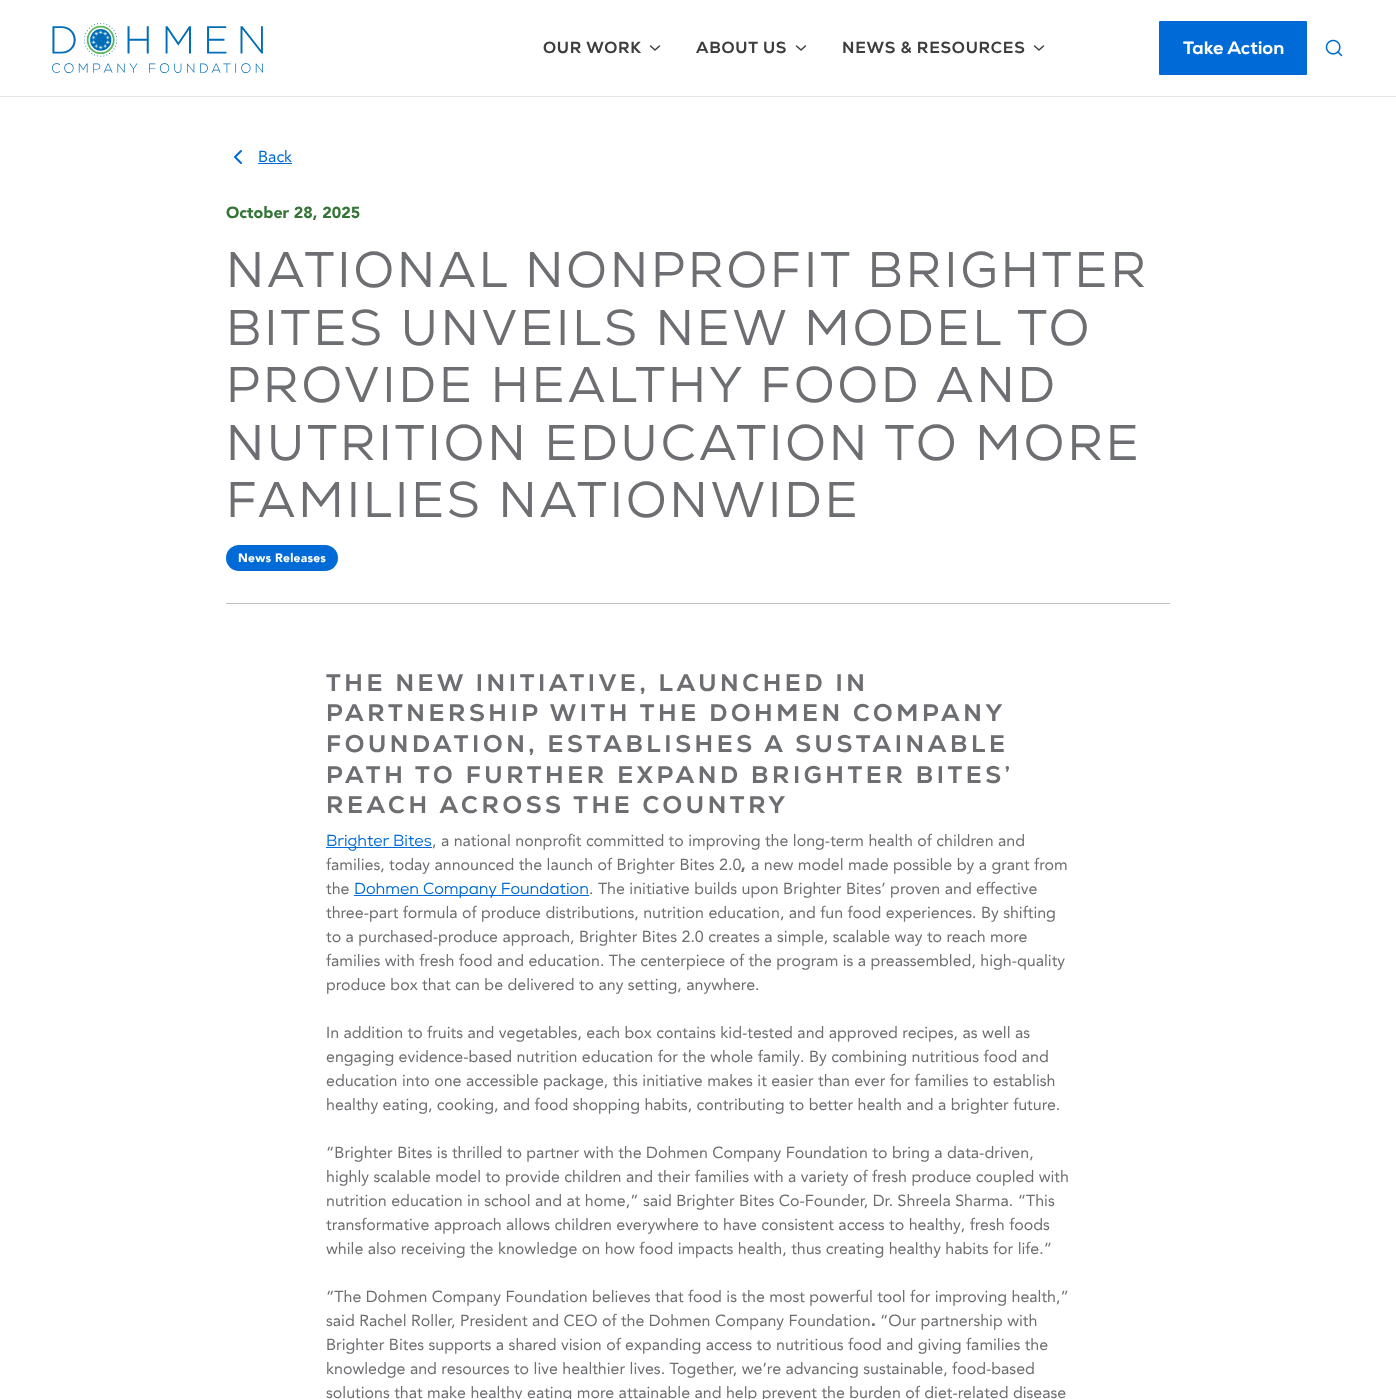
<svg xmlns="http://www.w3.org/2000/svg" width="1396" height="1399">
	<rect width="100%" height="100%" fill="#FFFFFF" />
	<rect x="0" y="96" width="1396" height="1" fill="#E7E7E7" />
	<image x="52" y="23" width="211" height="50" href="assets/img1.png" />
	<text x="543" y="53" font-family="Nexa" font-size="16" font-weight="800" letter-spacing="0.75" fill="#3C3D3E">OUR WORK</text>
	<path d="M650.5 46L655 50L659.5 46" fill="none" stroke="#3C3D3E" stroke-width="1.5" stroke-linecap="round" stroke-linejoin="round" />
	<text x="696" y="53" font-family="Nexa" font-size="16" font-weight="800" letter-spacing="0.75" fill="#3C3D3E">ABOUT US</text>
	<path d="M796.5 46L801 50L805.5 46" fill="none" stroke="#3C3D3E" stroke-width="1.5" stroke-linecap="round" stroke-linejoin="round" />
	<text x="842" y="53" font-family="Nexa" font-size="16" font-weight="800" letter-spacing="0.75" fill="#3C3D3E">NEWS &amp; RESOURCES</text>
	<path d="M1034.5 46L1039 50L1043.5 46" fill="none" stroke="#3C3D3E" stroke-width="1.5" stroke-linecap="round" stroke-linejoin="round" />
	<rect x="1158.5" y="20.5" width="149" height="55" rx="1.5" fill="#006BD6" stroke="#FFFFFF" />
	<text x="1183" y="54" font-family="Nexa" font-size="18" font-weight="800" fill="#FFFFFF">Take Action</text>
	<image x="1325" y="39" width="18" height="18" href="assets/img2.png" />
	<path d="M241 163L235 157L241 151" fill="none" stroke="#006BD6" stroke-width="2" stroke-linecap="round" stroke-linejoin="round" />
	<text x="258" y="162" font-family="Avenir" font-size="16" fill="#006BD6">Back</text>
	<rect x="258" y="163" width="34" height="1" fill="#006BD6" />
	<text x="226" y="218" font-family="Avenir" font-size="16" font-weight="900" fill="#357638">October 28, 2025</text>
	<g font-family="Nexa" font-size="50" letter-spacing="3" fill="#6D6E71">
		<text x="226" y="287">NATIONAL NONPROFIT BRIGHTER</text>
		<text x="226" y="345">BITES UNVEILS NEW MODEL TO</text>
		<text x="226" y="402">PROVIDE HEALTHY FOOD AND</text>
		<text x="226" y="460">NUTRITION EDUCATION TO MORE</text>
		<text x="226" y="517">FAMILIES NATIONWIDE</text>
	</g>
	<rect x="226" y="603" width="944" height="1" fill="#BCBEC0" />
	<rect x="226" y="545" width="112" height="26" rx="13" fill="#006BD6" />
	<text x="238" y="562" font-family="Avenir" font-size="12" font-weight="900" letter-spacing="0.25" fill="#FFFFFF">News Releases</text>
	<g font-family="Nexa" font-size="24" font-weight="800" letter-spacing="3.6" fill="#6D6E71">
		<text x="326" y="691">THE NEW INITIATIVE, LAUNCHED IN</text>
		<text x="326" y="721">PARTNERSHIP WITH THE DOHMEN COMPANY</text>
		<text x="326" y="752">FOUNDATION, ESTABLISHES A SUSTAINABLE</text>
		<text x="326" y="783">PATH TO FURTHER EXPAND BRIGHTER BITES’</text>
		<text x="326" y="813">REACH ACROSS THE COUNTRY</text>
	</g>
	<rect x="326" y="847" width="106" height="1" fill="#006BD6" />
	<text x="326" y="846" font-family="Nexa" font-size="16" fill="#006BD6">Brighter Bites</text>
	<g font-family="Avenir" font-size="16" fill="#6D6E71">
		<text x="432" y="846">, a national nonprofit committed to improving the long-term health of children and</text>
		<text x="326" y="870">families, today announced the launch of Brighter Bites 2.0</text>
	</g>
	<text x="741" y="870" font-family="Avenir" font-size="16" font-weight="900" fill="#6D6E71">,</text>
	<g font-family="Avenir" font-size="16" fill="#6D6E71">
		<text x="751" y="870">a new model made possible by a grant from</text>
		<text x="326" y="894">the</text>
	</g>
	<rect x="354" y="895" width="235" height="1" fill="#006BD6" />
	<text x="354" y="894" font-family="Nexa" font-size="16" fill="#006BD6">Dohmen Company Foundation</text>
	<g font-family="Avenir" font-size="16" fill="#6D6E71">
		<text x="589" y="894">. The initiative builds upon Brighter Bites’ proven and effective</text>
		<text x="326" y="918">three-part formula of produce distributions, nutrition education, and fun food experiences. By shifting</text>
		<text x="326" y="942">to a purchased-produce approach, Brighter Bites 2.0 creates a simple, scalable way to reach more</text>
		<text x="326" y="966">families with fresh food and education. The centerpiece of the program is a preassembled, high-quality</text>
		<text x="326" y="990">produce box that can be delivered to any setting, anywhere.</text>
		<text x="326" y="1038">In addition to fruits and vegetables, each box contains kid-tested and approved recipes, as well as</text>
		<text x="326" y="1062">engaging evidence-based nutrition education for the whole family. By combining nutritious food and</text>
		<text x="326" y="1086">education into one accessible package, this initiative makes it easier than ever for families to establish</text>
		<text x="326" y="1110">healthy eating, cooking, and food shopping habits, contributing to better health and a brighter future.</text>
		<text x="326" y="1158">“Brighter Bites is thrilled to partner with the Dohmen Company Foundation to bring a data-driven,</text>
		<text x="326" y="1182">highly scalable model to provide children and their families with a variety of fresh produce coupled with</text>
		<text x="326" y="1206">nutrition education in school and at home,” said Brighter Bites Co-Founder, Dr. Shreela Sharma. “This</text>
		<text x="326" y="1230">transformative approach allows children everywhere to have consistent access to healthy, fresh foods</text>
		<text x="326" y="1254">while also receiving the knowledge on how food impacts health, thus creating healthy habits for life.”</text>
		<text x="326" y="1302">“The Dohmen Company Foundation believes that food is the most powerful tool for improving health,”</text>
		<text x="326" y="1326">said Rachel Roller, President and CEO of the Dohmen Company Foundation</text>
	</g>
	<text x="871" y="1326" font-family="Avenir" font-size="16" font-weight="900" fill="#6D6E71">.</text>
	<g font-family="Avenir" font-size="16" fill="#6D6E71">
		<text x="880" y="1326">“Our partnership with</text>
		<text x="326" y="1350">Brighter Bites supports a shared vision of expanding access to nutritious food and giving families the</text>
		<text x="326" y="1374">knowledge and resources to live healthier lives. Together, we’re advancing sustainable, food-based</text>
		<text x="326" y="1398">solutions that make healthy eating more attainable and help prevent the burden of diet-related disease</text>
	</g>
</svg>
